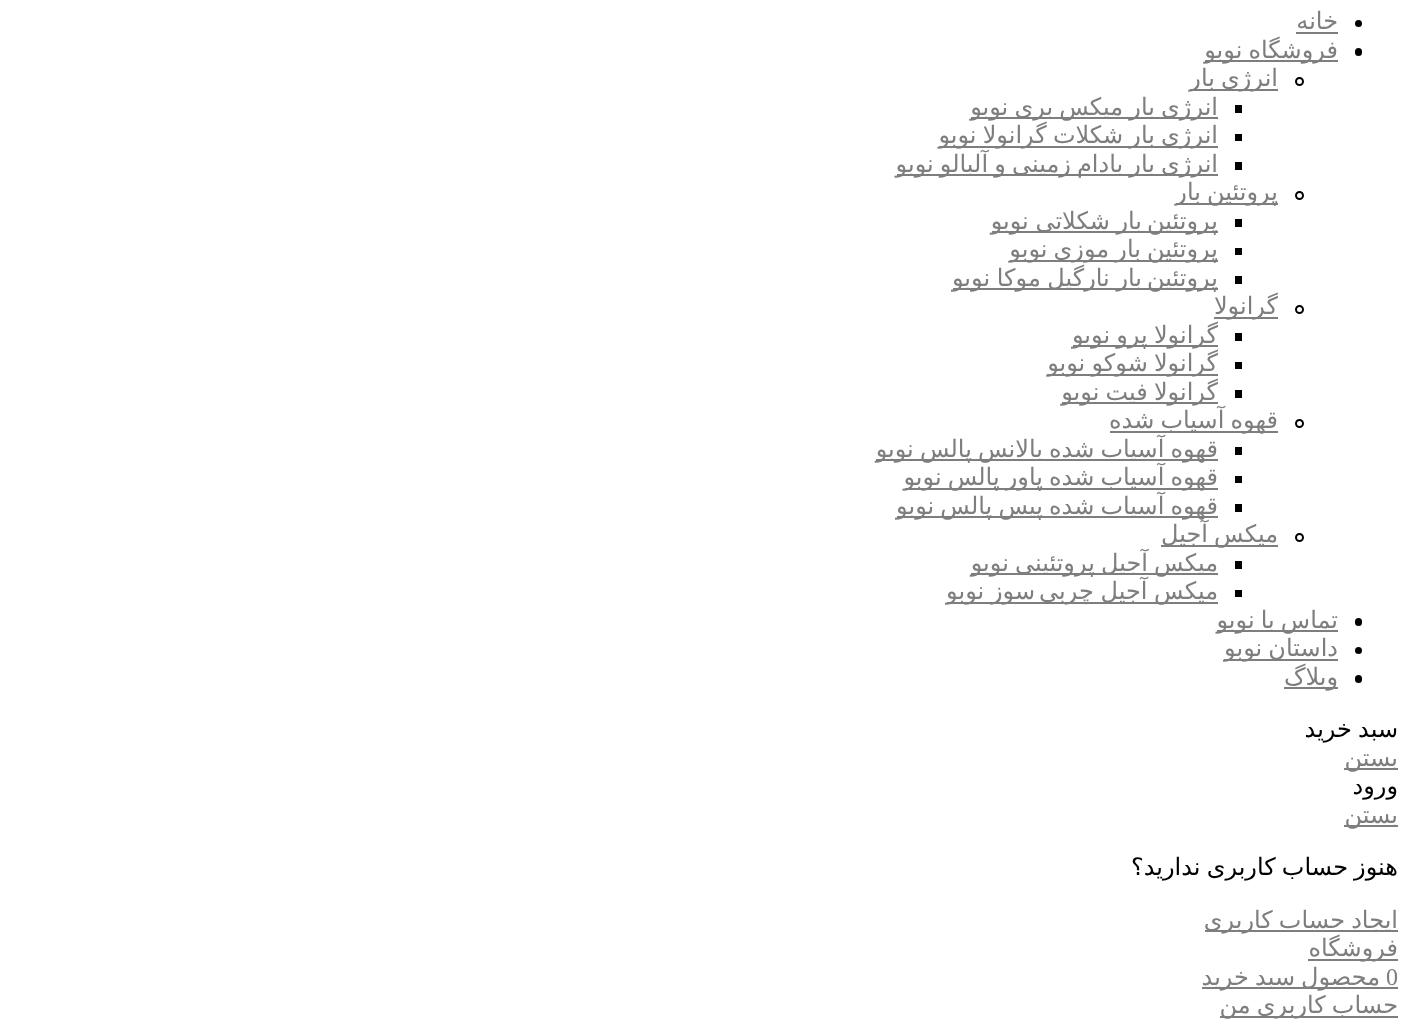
<svg xmlns="http://www.w3.org/2000/svg" width="1410" height="1032">
	<rect width="100%" height="100%" fill="#FFFFFF" />
	<circle cx="1358.5" cy="23.5" r="3.5" fill="#000000" />
	<text x="1338" y="29" font-family="DejaVu Sans" font-size="24" direction="rtl" fill="#7E7E7E">خانه</text>
	<rect x="1296" y="32" width="42" height="2" fill="#7E7E7E" />
	<rect x="1355" y="48" width="7" height="8" rx="3.5" fill="#000000" />
	<rect x="1205" y="60" width="133" height="2" fill="#7E7E7E" />
	<text x="1338" y="58" word-spacing="-1.5" font-family="DejaVu Sans" font-size="24" direction="rtl" fill="#7E7E7E">فروشگاه نوبو</text>
	<circle cx="1299.5" cy="81.5" r="3.5" fill="none" stroke="#000000" stroke-width="2" />
	<rect x="1190" y="89" width="88" height="2" fill="#7E7E7E" />
	<text x="1278" y="86" word-spacing="-1.5" font-family="DejaVu Sans" font-size="24" direction="rtl" fill="#7E7E7E">انرژی بار</text>
	<rect x="1235" y="105" width="7" height="8" fill="#000000" />
	<rect x="971" y="117" width="247" height="2" fill="#7E7E7E" />
	<text x="1218" y="115" word-spacing="-1.5" font-family="DejaVu Sans" font-size="24" direction="rtl" fill="#7E7E7E">انرژی بار میکس بری نوبو</text>
	<rect x="1235" y="134" width="7" height="7" fill="#000000" />
	<rect x="939" y="146" width="279" height="2" fill="#7E7E7E" />
	<text x="1218" y="143" word-spacing="-1.5" font-family="DejaVu Sans" font-size="24" direction="rtl" fill="#7E7E7E">انرژی بار شکلات گرانولا نوبو</text>
	<rect x="1235" y="162" width="7" height="8" fill="#000000" />
	<rect x="897" y="174" width="321" height="2" fill="#7E7E7E" />
	<text x="1218" y="172" word-spacing="-1.5" font-family="DejaVu Sans" font-size="24" direction="rtl" fill="#7E7E7E">انرژی بار بادام زمینی و آلبالو نوبو</text>
	<circle cx="1299.5" cy="195.5" r="3.5" fill="none" stroke="#000000" stroke-width="2" />
	<rect x="1176" y="203" width="102" height="2" fill="#7E7E7E" />
	<text x="1278" y="200" word-spacing="-1.5" font-family="DejaVu Sans" font-size="24" direction="rtl" fill="#7E7E7E">پروتئین بار</text>
	<rect x="1235" y="219" width="7" height="8" fill="#000000" />
	<rect x="992" y="231" width="226" height="2" fill="#7E7E7E" />
	<g font-family="DejaVu Sans" font-size="24" direction="rtl" fill="#7E7E7E">
		<text x="1218" y="229">پروتئین</text>
		<text x="1142" y="229" word-spacing="-1">بار شکلاتی نوبو</text>
	</g>
	<rect x="1235" y="248" width="7" height="7" fill="#000000" />
	<rect x="1010" y="260" width="208" height="2" fill="#7E7E7E" />
	<text x="1218" y="257" word-spacing="-1.5" font-family="DejaVu Sans" font-size="24" direction="rtl" fill="#7E7E7E">پروتئین بار موزی نوبو</text>
	<rect x="1235" y="276" width="7" height="8" fill="#000000" />
	<rect x="953" y="288" width="265" height="2" fill="#7E7E7E" />
	<g font-family="DejaVu Sans" font-size="24" direction="rtl" fill="#7E7E7E">
		<text x="1218" y="286">پروتئین</text>
		<text x="1142" y="286" word-spacing="-1">بار نارگیل موکا نوبو</text>
	</g>
	<circle cx="1299.5" cy="309.5" r="3.5" fill="none" stroke="#000000" stroke-width="2" />
	<rect x="1214" y="317" width="64" height="2" fill="#7E7E7E" />
	<text x="1278" y="314" font-family="DejaVu Sans" font-size="24" direction="rtl" fill="#7E7E7E">گرانولا</text>
	<rect x="1235" y="333" width="7" height="8" fill="#000000" />
	<rect x="1073" y="345" width="145" height="2" fill="#7E7E7E" />
	<text x="1218" y="343" word-spacing="-1.5" font-family="DejaVu Sans" font-size="24" direction="rtl" fill="#7E7E7E">گرانولا پرو نوبو</text>
	<rect x="1235" y="362" width="7" height="7" fill="#000000" />
	<rect x="1047" y="374" width="171" height="2" fill="#7E7E7E" />
	<text x="1218" y="371" word-spacing="-1.5" font-family="DejaVu Sans" font-size="24" direction="rtl" fill="#7E7E7E">گرانولا شوکو نوبو</text>
	<rect x="1235" y="390" width="7" height="8" fill="#000000" />
	<rect x="1062" y="402" width="156" height="2" fill="#7E7E7E" />
	<text x="1218" y="400" word-spacing="-1.5" font-family="DejaVu Sans" font-size="24" direction="rtl" fill="#7E7E7E">گرانولا فیت نوبو</text>
	<circle cx="1299.5" cy="423.5" r="3.5" fill="none" stroke="#000000" stroke-width="2" />
	<rect x="1110" y="431" width="168" height="2" fill="#7E7E7E" />
	<text x="1278" y="428" word-spacing="-1.5" font-family="DejaVu Sans" font-size="24" direction="rtl" fill="#7E7E7E">قهوه آسیاب شده</text>
	<rect x="1235" y="447" width="7" height="8" fill="#000000" />
	<rect x="876" y="459" width="342" height="2" fill="#7E7E7E" />
	<text x="1218" y="457" word-spacing="-1.5" font-family="DejaVu Sans" font-size="24" direction="rtl" fill="#7E7E7E">قهوه آسیاب شده بالانس پالس نوبو</text>
	<rect x="1235" y="476" width="7" height="7" fill="#000000" />
	<rect x="905" y="488" width="313" height="2" fill="#7E7E7E" />
	<text x="1218" y="485" word-spacing="-1.5" font-family="DejaVu Sans" font-size="24" direction="rtl" fill="#7E7E7E">قهوه آسیاب شده پاور پالس نوبو</text>
	<rect x="1235" y="504" width="7" height="8" fill="#000000" />
	<rect x="897" y="516" width="321" height="2" fill="#7E7E7E" />
	<text x="1218" y="514" word-spacing="-1.5" font-family="DejaVu Sans" font-size="24" direction="rtl" fill="#7E7E7E">قهوه آسیاب شده پیس پالس نوبو</text>
	<circle cx="1299.5" cy="537.5" r="3.5" fill="none" stroke="#000000" stroke-width="2" />
	<rect x="1161" y="545" width="117" height="2" fill="#7E7E7E" />
	<text x="1278" y="542" word-spacing="-1.5" font-family="DejaVu Sans" font-size="24" direction="rtl" fill="#7E7E7E">میکس آجیل</text>
	<rect x="1235" y="561" width="7" height="8" fill="#000000" />
	<rect x="971" y="573" width="247" height="2" fill="#7E7E7E" />
	<text x="1218" y="571" word-spacing="-1.5" font-family="DejaVu Sans" font-size="24" direction="rtl" fill="#7E7E7E">میکس آجیل پروتئینی نوبو</text>
	<rect x="1235" y="590" width="7" height="7" fill="#000000" />
	<rect x="947" y="602" width="271" height="2" fill="#7E7E7E" />
	<g font-family="DejaVu Sans" font-size="24" direction="rtl" fill="#7E7E7E">
		<text x="1218" y="599" word-spacing="-1">میکس آجیل چربی</text>
		<text x="1035" y="599" word-spacing="-1">سوز نوبو</text>
	</g>
	<rect x="1355" y="618" width="7" height="8" rx="3.5" fill="#000000" />
	<rect x="1217" y="630" width="121" height="2" fill="#7E7E7E" />
	<text x="1338" y="628" word-spacing="-1.5" font-family="DejaVu Sans" font-size="24" direction="rtl" fill="#7E7E7E">تماس با نوبو</text>
	<circle cx="1358.5" cy="650.5" r="3.5" fill="#000000" />
	<rect x="1224" y="659" width="114" height="2" fill="#7E7E7E" />
	<text x="1338" y="656" word-spacing="-1.5" font-family="DejaVu Sans" font-size="24" direction="rtl" fill="#7E7E7E">داستان نوبو</text>
	<rect x="1355" y="675" width="7" height="8" rx="3.5" fill="#000000" />
	<rect x="1284" y="687" width="54" height="2" fill="#7E7E7E" />
	<text x="1338" y="685" font-family="DejaVu Sans" font-size="24" direction="rtl" fill="#7E7E7E">وبلاگ</text>
	<text x="1398" y="737" word-spacing="-1.5" font-family="DejaVu Sans" font-size="24" direction="rtl" fill="#000000">سبد خرید</text>
	<rect x="1344" y="768" width="54" height="2" fill="#7E7E7E" />
	<text x="1398" y="766" font-family="DejaVu Sans" font-size="24" direction="rtl" fill="#7E7E7E">بستن</text>
	<text x="1398" y="794" font-family="DejaVu Sans" font-size="24" direction="rtl" fill="#000000">ورود</text>
	<rect x="1344" y="825" width="54" height="2" fill="#7E7E7E" />
	<text x="1398" y="823" font-family="DejaVu Sans" font-size="24" direction="rtl" fill="#7E7E7E">بستن</text>
	<text x="1398" y="875" word-spacing="-1.5" font-family="DejaVu Sans" font-size="24" direction="rtl" fill="#000000">هنوز حساب کاربری ندارید؟</text>
	<rect x="1205" y="930" width="193" height="2" fill="#7E7E7E" />
	<text x="1398" y="928" word-spacing="-1.5" font-family="DejaVu Sans" font-size="24" direction="rtl" fill="#7E7E7E">ایجاد حساب کاربری</text>
	<rect x="1308" y="959" width="90" height="2" fill="#7E7E7E" />
	<text x="1398" y="956" font-family="DejaVu Sans" font-size="24" direction="rtl" fill="#7E7E7E">فروشگاه</text>
	<text x="1386" y="985" font-family="Liberation Serif" font-size="24" fill="#7E7E7E">0</text>
	<rect x="1202" y="987" width="196" height="2" fill="#7E7E7E" />
	<g font-family="DejaVu Sans" font-size="24" direction="rtl" fill="#7E7E7E">
		<text x="1380" y="985">محصول</text>
		<text x="1295" y="985" word-spacing="-1.5">سبد خرید</text>
	</g>
	<rect x="1220" y="1016" width="178" height="2" fill="#7E7E7E" />
	<text x="1398" y="1013" word-spacing="-1.5" font-family="DejaVu Sans" font-size="24" direction="rtl" fill="#7E7E7E">حساب کاربری من</text>
</svg>
